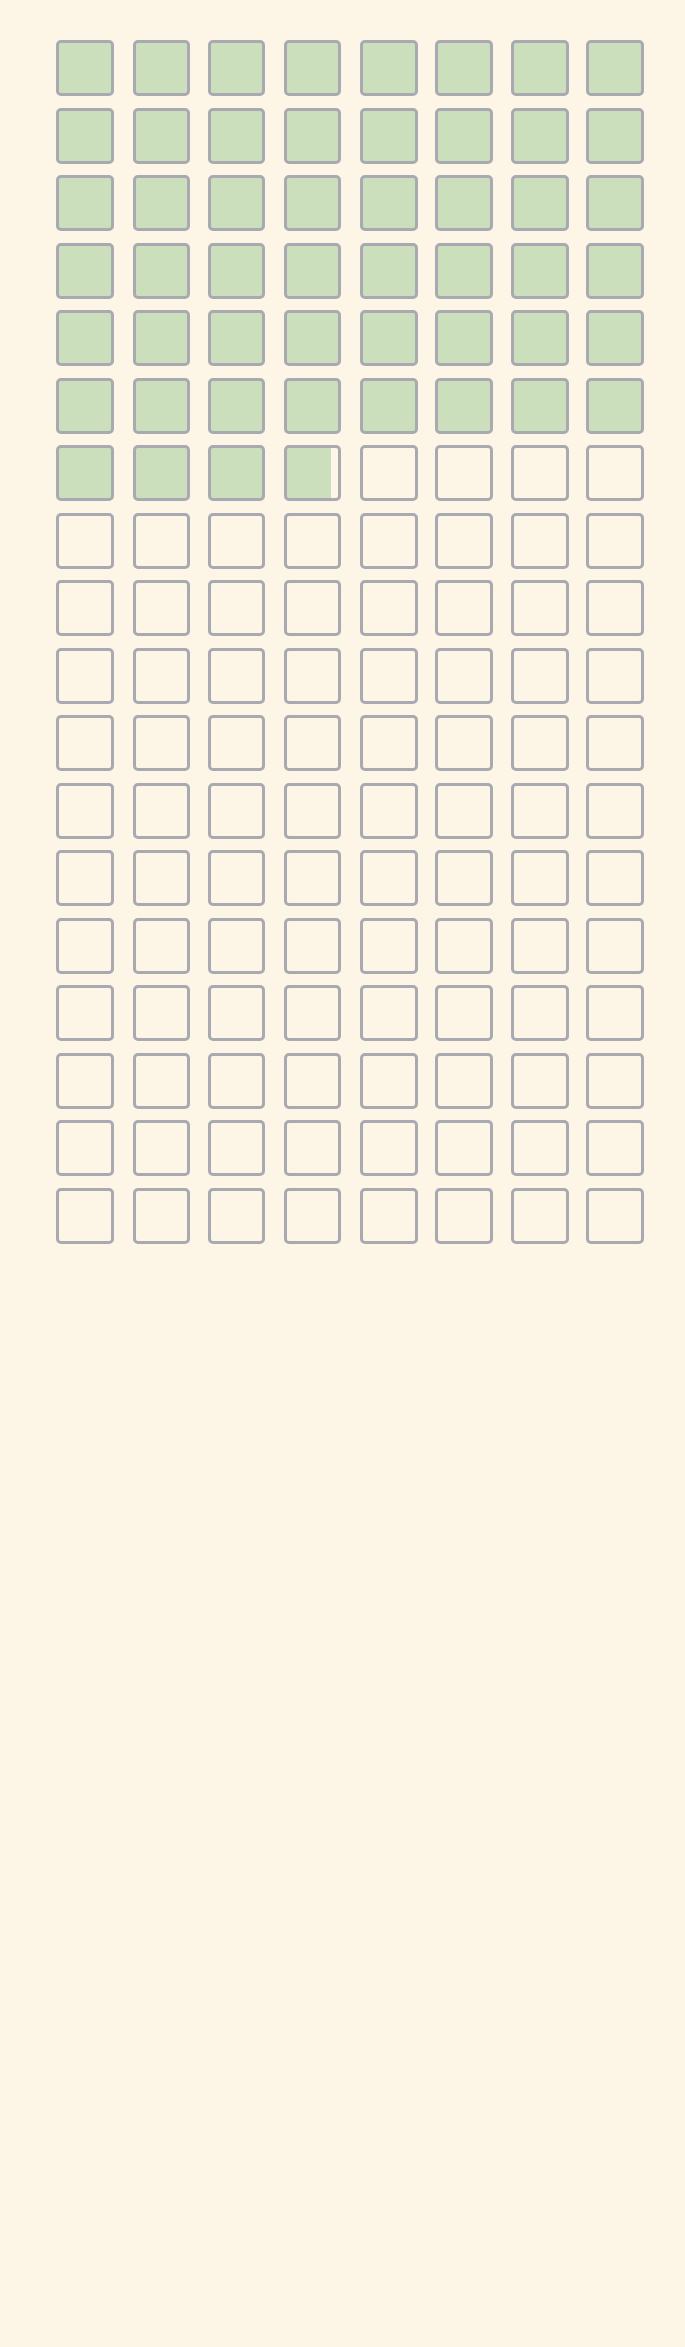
<svg xmlns="http://www.w3.org/2000/svg" width="685" height="2347">
	<defs>
		<clipPath id="clip1"><rect x="284" y="445" width="57" height="56" rx="5" /></clipPath>
	</defs>
	<rect width="100%" height="100%" fill="#FDF5E6" />
	<rect x="57.5" y="41.5" width="55" height="53" rx="3.5" fill="#CBDFBD" stroke="#A9AAB1" stroke-width="3" />
	<rect x="134.5" y="41.5" width="54" height="53" rx="3.5" fill="#CBDFBD" stroke="#A9AAB1" stroke-width="3" />
	<rect x="209.5" y="41.5" width="54" height="53" rx="3.5" fill="#CBDFBD" stroke="#A9AAB1" stroke-width="3" />
	<rect x="285.5" y="41.5" width="54" height="53" rx="3.5" fill="#CBDFBD" stroke="#A9AAB1" stroke-width="3" />
	<rect x="361.5" y="41.5" width="55" height="53" rx="3.5" fill="#CBDFBD" stroke="#A9AAB1" stroke-width="3" />
	<rect x="436.5" y="41.5" width="55" height="53" rx="3.5" fill="#CBDFBD" stroke="#A9AAB1" stroke-width="3" />
	<rect x="512.5" y="41.5" width="55" height="53" rx="3.5" fill="#CBDFBD" stroke="#A9AAB1" stroke-width="3" />
	<rect x="587.5" y="41.5" width="55" height="53" rx="3.5" fill="#CBDFBD" stroke="#A9AAB1" stroke-width="3" />
	<rect x="57.5" y="109.5" width="55" height="53" rx="3.5" fill="#CBDFBD" stroke="#A9AAB1" stroke-width="3" />
	<rect x="134.5" y="109.5" width="54" height="53" rx="3.5" fill="#CBDFBD" stroke="#A9AAB1" stroke-width="3" />
	<rect x="209.5" y="109.5" width="54" height="53" rx="3.5" fill="#CBDFBD" stroke="#A9AAB1" stroke-width="3" />
	<rect x="285.5" y="109.5" width="54" height="53" rx="3.5" fill="#CBDFBD" stroke="#A9AAB1" stroke-width="3" />
	<rect x="361.5" y="109.5" width="55" height="53" rx="3.5" fill="#CBDFBD" stroke="#A9AAB1" stroke-width="3" />
	<rect x="436.5" y="109.5" width="55" height="53" rx="3.5" fill="#CBDFBD" stroke="#A9AAB1" stroke-width="3" />
	<rect x="512.5" y="109.5" width="55" height="53" rx="3.5" fill="#CBDFBD" stroke="#A9AAB1" stroke-width="3" />
	<rect x="587.5" y="109.5" width="55" height="53" rx="3.5" fill="#CBDFBD" stroke="#A9AAB1" stroke-width="3" />
	<rect x="57.5" y="176.5" width="55" height="53" rx="3.5" fill="#CBDFBD" stroke="#A9AAB1" stroke-width="3" />
	<rect x="134.5" y="176.5" width="54" height="53" rx="3.5" fill="#CBDFBD" stroke="#A9AAB1" stroke-width="3" />
	<rect x="209.5" y="176.5" width="54" height="53" rx="3.5" fill="#CBDFBD" stroke="#A9AAB1" stroke-width="3" />
	<rect x="285.5" y="176.5" width="54" height="53" rx="3.5" fill="#CBDFBD" stroke="#A9AAB1" stroke-width="3" />
	<rect x="361.5" y="176.5" width="55" height="53" rx="3.5" fill="#CBDFBD" stroke="#A9AAB1" stroke-width="3" />
	<rect x="436.5" y="176.5" width="55" height="53" rx="3.5" fill="#CBDFBD" stroke="#A9AAB1" stroke-width="3" />
	<rect x="512.5" y="176.5" width="55" height="53" rx="3.5" fill="#CBDFBD" stroke="#A9AAB1" stroke-width="3" />
	<rect x="587.5" y="176.5" width="55" height="53" rx="3.5" fill="#CBDFBD" stroke="#A9AAB1" stroke-width="3" />
	<rect x="57.5" y="244.5" width="55" height="53" rx="3.5" fill="#CBDFBD" stroke="#A9AAB1" stroke-width="3" />
	<rect x="134.5" y="244.5" width="54" height="53" rx="3.5" fill="#CBDFBD" stroke="#A9AAB1" stroke-width="3" />
	<rect x="209.5" y="244.5" width="54" height="53" rx="3.5" fill="#CBDFBD" stroke="#A9AAB1" stroke-width="3" />
	<rect x="285.5" y="244.5" width="54" height="53" rx="3.5" fill="#CBDFBD" stroke="#A9AAB1" stroke-width="3" />
	<rect x="361.5" y="244.5" width="55" height="53" rx="3.5" fill="#CBDFBD" stroke="#A9AAB1" stroke-width="3" />
	<rect x="436.5" y="244.5" width="55" height="53" rx="3.5" fill="#CBDFBD" stroke="#A9AAB1" stroke-width="3" />
	<rect x="512.5" y="244.5" width="55" height="53" rx="3.5" fill="#CBDFBD" stroke="#A9AAB1" stroke-width="3" />
	<rect x="587.5" y="244.5" width="55" height="53" rx="3.5" fill="#CBDFBD" stroke="#A9AAB1" stroke-width="3" />
	<rect x="57.5" y="311.5" width="55" height="53" rx="3.5" fill="#CBDFBD" stroke="#A9AAB1" stroke-width="3" />
	<rect x="134.5" y="311.5" width="54" height="53" rx="3.5" fill="#CBDFBD" stroke="#A9AAB1" stroke-width="3" />
	<rect x="209.5" y="311.5" width="54" height="53" rx="3.5" fill="#CBDFBD" stroke="#A9AAB1" stroke-width="3" />
	<rect x="285.5" y="311.5" width="54" height="53" rx="3.5" fill="#CBDFBD" stroke="#A9AAB1" stroke-width="3" />
	<rect x="361.5" y="311.5" width="55" height="53" rx="3.5" fill="#CBDFBD" stroke="#A9AAB1" stroke-width="3" />
	<rect x="436.5" y="311.5" width="55" height="53" rx="3.5" fill="#CBDFBD" stroke="#A9AAB1" stroke-width="3" />
	<rect x="512.5" y="311.5" width="55" height="53" rx="3.5" fill="#CBDFBD" stroke="#A9AAB1" stroke-width="3" />
	<rect x="587.5" y="311.5" width="55" height="53" rx="3.5" fill="#CBDFBD" stroke="#A9AAB1" stroke-width="3" />
	<rect x="57.5" y="379.5" width="55" height="53" rx="3.5" fill="#CBDFBD" stroke="#A9AAB1" stroke-width="3" />
	<rect x="134.5" y="379.5" width="54" height="53" rx="3.5" fill="#CBDFBD" stroke="#A9AAB1" stroke-width="3" />
	<rect x="209.5" y="379.5" width="54" height="53" rx="3.5" fill="#CBDFBD" stroke="#A9AAB1" stroke-width="3" />
	<rect x="285.5" y="379.5" width="54" height="53" rx="3.5" fill="#CBDFBD" stroke="#A9AAB1" stroke-width="3" />
	<rect x="361.5" y="379.5" width="55" height="53" rx="3.5" fill="#CBDFBD" stroke="#A9AAB1" stroke-width="3" />
	<rect x="436.5" y="379.5" width="55" height="53" rx="3.5" fill="#CBDFBD" stroke="#A9AAB1" stroke-width="3" />
	<rect x="512.5" y="379.5" width="55" height="53" rx="3.5" fill="#CBDFBD" stroke="#A9AAB1" stroke-width="3" />
	<rect x="587.5" y="379.5" width="55" height="53" rx="3.5" fill="#CBDFBD" stroke="#A9AAB1" stroke-width="3" />
	<rect x="57.5" y="446.5" width="55" height="53" rx="3.5" fill="#CBDFBD" stroke="#A9AAB1" stroke-width="3" />
	<rect x="134.5" y="446.5" width="54" height="53" rx="3.5" fill="#CBDFBD" stroke="#A9AAB1" stroke-width="3" />
	<rect x="209.5" y="446.5" width="54" height="53" rx="3.5" fill="#CBDFBD" stroke="#A9AAB1" stroke-width="3" />
	<g clip-path="url(#clip1)">
		<rect x="286" y="445" width="45" height="56" fill="#CBDFBD" />
	</g>
	<rect x="285.5" y="446.5" width="54" height="53" rx="3.5" fill="none" stroke="#A9AAB1" stroke-width="3" />
	<rect x="361.5" y="446.5" width="55" height="53" rx="3.5" fill="none" stroke="#A9AAB1" stroke-width="3" />
	<rect x="436.5" y="446.5" width="55" height="53" rx="3.5" fill="none" stroke="#A9AAB1" stroke-width="3" />
	<rect x="512.5" y="446.5" width="55" height="53" rx="3.5" fill="none" stroke="#A9AAB1" stroke-width="3" />
	<rect x="587.5" y="446.5" width="55" height="53" rx="3.5" fill="none" stroke="#A9AAB1" stroke-width="3" />
	<rect x="57.5" y="514.5" width="55" height="53" rx="3.5" fill="none" stroke="#A9AAB1" stroke-width="3" />
	<rect x="134.5" y="514.5" width="54" height="53" rx="3.5" fill="none" stroke="#A9AAB1" stroke-width="3" />
	<rect x="209.5" y="514.5" width="54" height="53" rx="3.5" fill="none" stroke="#A9AAB1" stroke-width="3" />
	<rect x="285.5" y="514.5" width="54" height="53" rx="3.5" fill="none" stroke="#A9AAB1" stroke-width="3" />
	<rect x="361.5" y="514.5" width="55" height="53" rx="3.5" fill="none" stroke="#A9AAB1" stroke-width="3" />
	<rect x="436.5" y="514.5" width="55" height="53" rx="3.5" fill="none" stroke="#A9AAB1" stroke-width="3" />
	<rect x="512.5" y="514.5" width="55" height="53" rx="3.5" fill="none" stroke="#A9AAB1" stroke-width="3" />
	<rect x="587.5" y="514.5" width="55" height="53" rx="3.5" fill="none" stroke="#A9AAB1" stroke-width="3" />
	<rect x="57.5" y="581.5" width="55" height="53" rx="3.5" fill="none" stroke="#A9AAB1" stroke-width="3" />
	<rect x="134.5" y="581.5" width="54" height="53" rx="3.5" fill="none" stroke="#A9AAB1" stroke-width="3" />
	<rect x="209.5" y="581.5" width="54" height="53" rx="3.5" fill="none" stroke="#A9AAB1" stroke-width="3" />
	<rect x="285.5" y="581.5" width="54" height="53" rx="3.5" fill="none" stroke="#A9AAB1" stroke-width="3" />
	<rect x="361.5" y="581.5" width="55" height="53" rx="3.5" fill="none" stroke="#A9AAB1" stroke-width="3" />
	<rect x="436.5" y="581.5" width="55" height="53" rx="3.5" fill="none" stroke="#A9AAB1" stroke-width="3" />
	<rect x="512.5" y="581.5" width="55" height="53" rx="3.5" fill="none" stroke="#A9AAB1" stroke-width="3" />
	<rect x="587.5" y="581.5" width="55" height="53" rx="3.5" fill="none" stroke="#A9AAB1" stroke-width="3" />
	<rect x="57.5" y="649.5" width="55" height="53" rx="3.5" fill="none" stroke="#A9AAB1" stroke-width="3" />
	<rect x="134.5" y="649.5" width="54" height="53" rx="3.5" fill="none" stroke="#A9AAB1" stroke-width="3" />
	<rect x="209.5" y="649.5" width="54" height="53" rx="3.5" fill="none" stroke="#A9AAB1" stroke-width="3" />
	<rect x="285.5" y="649.5" width="54" height="53" rx="3.5" fill="none" stroke="#A9AAB1" stroke-width="3" />
	<rect x="361.5" y="649.5" width="55" height="53" rx="3.5" fill="none" stroke="#A9AAB1" stroke-width="3" />
	<rect x="436.5" y="649.5" width="55" height="53" rx="3.5" fill="none" stroke="#A9AAB1" stroke-width="3" />
	<rect x="512.5" y="649.5" width="55" height="53" rx="3.5" fill="none" stroke="#A9AAB1" stroke-width="3" />
	<rect x="587.5" y="649.5" width="55" height="53" rx="3.5" fill="none" stroke="#A9AAB1" stroke-width="3" />
	<rect x="57.5" y="716.5" width="55" height="53" rx="3.5" fill="none" stroke="#A9AAB1" stroke-width="3" />
	<rect x="134.5" y="716.5" width="54" height="53" rx="3.5" fill="none" stroke="#A9AAB1" stroke-width="3" />
	<rect x="209.5" y="716.5" width="54" height="53" rx="3.5" fill="none" stroke="#A9AAB1" stroke-width="3" />
	<rect x="285.5" y="716.5" width="54" height="53" rx="3.5" fill="none" stroke="#A9AAB1" stroke-width="3" />
	<rect x="361.5" y="716.5" width="55" height="53" rx="3.5" fill="none" stroke="#A9AAB1" stroke-width="3" />
	<rect x="436.5" y="716.5" width="55" height="53" rx="3.5" fill="none" stroke="#A9AAB1" stroke-width="3" />
	<rect x="512.5" y="716.5" width="55" height="53" rx="3.5" fill="none" stroke="#A9AAB1" stroke-width="3" />
	<rect x="587.5" y="716.5" width="55" height="53" rx="3.5" fill="none" stroke="#A9AAB1" stroke-width="3" />
	<rect x="57.5" y="784.5" width="55" height="53" rx="3.5" fill="none" stroke="#A9AAB1" stroke-width="3" />
	<rect x="134.5" y="784.5" width="54" height="53" rx="3.5" fill="none" stroke="#A9AAB1" stroke-width="3" />
	<rect x="209.5" y="784.5" width="54" height="53" rx="3.5" fill="none" stroke="#A9AAB1" stroke-width="3" />
	<rect x="285.5" y="784.5" width="54" height="53" rx="3.5" fill="none" stroke="#A9AAB1" stroke-width="3" />
	<rect x="361.5" y="784.5" width="55" height="53" rx="3.5" fill="none" stroke="#A9AAB1" stroke-width="3" />
	<rect x="436.5" y="784.5" width="55" height="53" rx="3.5" fill="none" stroke="#A9AAB1" stroke-width="3" />
	<rect x="512.5" y="784.5" width="55" height="53" rx="3.5" fill="none" stroke="#A9AAB1" stroke-width="3" />
	<rect x="587.5" y="784.5" width="55" height="53" rx="3.5" fill="none" stroke="#A9AAB1" stroke-width="3" />
	<rect x="57.5" y="851.5" width="55" height="53" rx="3.5" fill="none" stroke="#A9AAB1" stroke-width="3" />
	<rect x="134.5" y="851.5" width="54" height="53" rx="3.5" fill="none" stroke="#A9AAB1" stroke-width="3" />
	<rect x="209.5" y="851.5" width="54" height="53" rx="3.5" fill="none" stroke="#A9AAB1" stroke-width="3" />
	<rect x="285.5" y="851.5" width="54" height="53" rx="3.5" fill="none" stroke="#A9AAB1" stroke-width="3" />
	<rect x="361.5" y="851.5" width="55" height="53" rx="3.5" fill="none" stroke="#A9AAB1" stroke-width="3" />
	<rect x="436.5" y="851.5" width="55" height="53" rx="3.5" fill="none" stroke="#A9AAB1" stroke-width="3" />
	<rect x="512.5" y="851.5" width="55" height="53" rx="3.5" fill="none" stroke="#A9AAB1" stroke-width="3" />
	<rect x="587.5" y="851.5" width="55" height="53" rx="3.5" fill="none" stroke="#A9AAB1" stroke-width="3" />
	<rect x="57.5" y="919.5" width="55" height="53" rx="3.5" fill="none" stroke="#A9AAB1" stroke-width="3" />
	<rect x="134.5" y="919.5" width="54" height="53" rx="3.5" fill="none" stroke="#A9AAB1" stroke-width="3" />
	<rect x="209.5" y="919.5" width="54" height="53" rx="3.5" fill="none" stroke="#A9AAB1" stroke-width="3" />
	<rect x="285.5" y="919.5" width="54" height="53" rx="3.5" fill="none" stroke="#A9AAB1" stroke-width="3" />
	<rect x="361.5" y="919.5" width="55" height="53" rx="3.5" fill="none" stroke="#A9AAB1" stroke-width="3" />
	<rect x="436.5" y="919.5" width="55" height="53" rx="3.5" fill="none" stroke="#A9AAB1" stroke-width="3" />
	<rect x="512.5" y="919.5" width="55" height="53" rx="3.5" fill="none" stroke="#A9AAB1" stroke-width="3" />
	<rect x="587.5" y="919.5" width="55" height="53" rx="3.5" fill="none" stroke="#A9AAB1" stroke-width="3" />
	<rect x="57.5" y="986.5" width="55" height="53" rx="3.5" fill="none" stroke="#A9AAB1" stroke-width="3" />
	<rect x="134.5" y="986.5" width="54" height="53" rx="3.5" fill="none" stroke="#A9AAB1" stroke-width="3" />
	<rect x="209.5" y="986.5" width="54" height="53" rx="3.5" fill="none" stroke="#A9AAB1" stroke-width="3" />
	<rect x="285.5" y="986.5" width="54" height="53" rx="3.5" fill="none" stroke="#A9AAB1" stroke-width="3" />
	<rect x="361.5" y="986.5" width="55" height="53" rx="3.5" fill="none" stroke="#A9AAB1" stroke-width="3" />
	<rect x="436.5" y="986.5" width="55" height="53" rx="3.5" fill="none" stroke="#A9AAB1" stroke-width="3" />
	<rect x="512.5" y="986.5" width="55" height="53" rx="3.5" fill="none" stroke="#A9AAB1" stroke-width="3" />
	<rect x="587.5" y="986.5" width="55" height="53" rx="3.5" fill="none" stroke="#A9AAB1" stroke-width="3" />
	<rect x="57.5" y="1054.5" width="55" height="53" rx="3.5" fill="none" stroke="#A9AAB1" stroke-width="3" />
	<rect x="134.5" y="1054.5" width="54" height="53" rx="3.5" fill="none" stroke="#A9AAB1" stroke-width="3" />
	<rect x="209.5" y="1054.5" width="54" height="53" rx="3.5" fill="none" stroke="#A9AAB1" stroke-width="3" />
	<rect x="285.5" y="1054.5" width="54" height="53" rx="3.5" fill="none" stroke="#A9AAB1" stroke-width="3" />
	<rect x="361.5" y="1054.5" width="55" height="53" rx="3.5" fill="none" stroke="#A9AAB1" stroke-width="3" />
	<rect x="436.5" y="1054.5" width="55" height="53" rx="3.5" fill="none" stroke="#A9AAB1" stroke-width="3" />
	<rect x="512.5" y="1054.5" width="55" height="53" rx="3.5" fill="none" stroke="#A9AAB1" stroke-width="3" />
	<rect x="587.5" y="1054.5" width="55" height="53" rx="3.5" fill="none" stroke="#A9AAB1" stroke-width="3" />
	<rect x="57.5" y="1121.5" width="55" height="53" rx="3.5" fill="none" stroke="#A9AAB1" stroke-width="3" />
	<rect x="134.5" y="1121.5" width="54" height="53" rx="3.5" fill="none" stroke="#A9AAB1" stroke-width="3" />
	<rect x="209.5" y="1121.5" width="54" height="53" rx="3.5" fill="none" stroke="#A9AAB1" stroke-width="3" />
	<rect x="285.5" y="1121.5" width="54" height="53" rx="3.5" fill="none" stroke="#A9AAB1" stroke-width="3" />
	<rect x="361.5" y="1121.5" width="55" height="53" rx="3.5" fill="none" stroke="#A9AAB1" stroke-width="3" />
	<rect x="436.5" y="1121.5" width="55" height="53" rx="3.5" fill="none" stroke="#A9AAB1" stroke-width="3" />
	<rect x="512.5" y="1121.5" width="55" height="53" rx="3.5" fill="none" stroke="#A9AAB1" stroke-width="3" />
	<rect x="587.5" y="1121.5" width="55" height="53" rx="3.5" fill="none" stroke="#A9AAB1" stroke-width="3" />
	<rect x="57.5" y="1189.5" width="55" height="53" rx="3.5" fill="none" stroke="#A9AAB1" stroke-width="3" />
	<rect x="134.5" y="1189.5" width="54" height="53" rx="3.5" fill="none" stroke="#A9AAB1" stroke-width="3" />
	<rect x="209.5" y="1189.5" width="54" height="53" rx="3.5" fill="none" stroke="#A9AAB1" stroke-width="3" />
	<rect x="285.5" y="1189.5" width="54" height="53" rx="3.5" fill="none" stroke="#A9AAB1" stroke-width="3" />
	<rect x="361.5" y="1189.5" width="55" height="53" rx="3.5" fill="none" stroke="#A9AAB1" stroke-width="3" />
	<rect x="436.5" y="1189.5" width="55" height="53" rx="3.5" fill="none" stroke="#A9AAB1" stroke-width="3" />
	<rect x="512.5" y="1189.5" width="55" height="53" rx="3.5" fill="none" stroke="#A9AAB1" stroke-width="3" />
	<rect x="587.5" y="1189.5" width="55" height="53" rx="3.5" fill="none" stroke="#A9AAB1" stroke-width="3" />
</svg>
